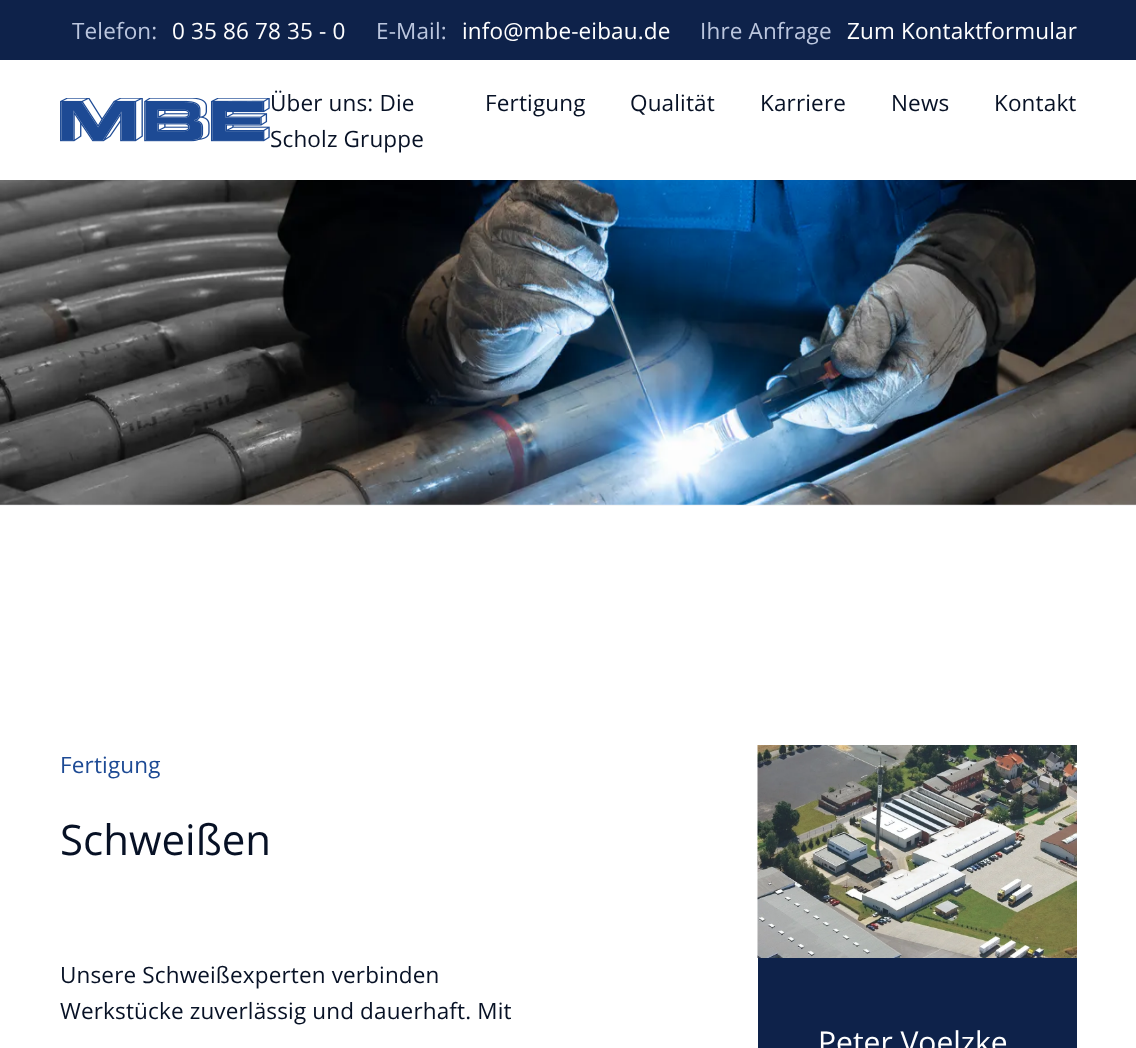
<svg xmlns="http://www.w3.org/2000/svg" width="1136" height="1048">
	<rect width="100%" height="100%" fill="#F6F6F7" />
	<rect x="0" y="60" width="1136" height="120" fill="#FFFFFF" />
	<rect x="0" y="0" width="1136" height="60" fill="#0E224A" />
	<text x="72" y="39" font-family="Open Sans" font-size="22.5" letter-spacing="0.15" fill="#BBC6DE">Telefon:</text>
	<text x="172" y="39" font-family="Open Sans" font-size="22.5" letter-spacing="0.15" fill="#FFFFFF">0 35 86 78 35 - 0</text>
	<text x="376" y="39" font-family="Open Sans" font-size="22.5" letter-spacing="0.15" fill="#BBC6DE">E-Mail:</text>
	<text x="462" y="39" font-family="Open Sans" font-size="22.5" letter-spacing="0.15" fill="#FFFFFF">info@mbe-eibau.de</text>
	<text x="700" y="39" font-family="Open Sans" font-size="22.5" letter-spacing="0.15" fill="#BBC6DE">Ihre Anfrage</text>
	<text x="847" y="39" font-family="Open Sans" font-size="22.5" letter-spacing="0.15" fill="#FFFFFF">Zum Kontaktformular</text>
	<image x="60" y="98" width="210" height="44" href="assets/img1.png" />
	<g font-family="Open Sans" font-size="22.5" letter-spacing="0.15" fill="#071125">
		<text x="270" y="111">Über uns: Die</text>
		<text x="270" y="147">Scholz Gruppe</text>
		<text x="485" y="111">Fertigung</text>
		<text x="630" y="111">Qualität</text>
		<text x="760" y="111">Karriere</text>
		<text x="891" y="111">News</text>
		<text x="994" y="111">Kontakt</text>
	</g>
	<image x="0" y="180" width="1136" height="325" href="assets/img2.png" />
	<rect x="0" y="506" width="1136" height="542" fill="#FFFFFF" />
	<text x="60" y="773" font-family="Open Sans" font-size="22.5" letter-spacing="0.15" fill="#1D4A94">Fertigung</text>
	<text x="60" y="855" font-family="Open Sans" font-size="42" fill="#071125">Schweißen</text>
	<g font-family="Open Sans" font-size="22.5" letter-spacing="0.15" fill="#071125">
		<text x="60" y="983">Unsere Schweißexperten verbinden</text>
		<text x="60" y="1019">Werkstücke zuverlässig und dauerhaft. Mit</text>
	</g>
	<rect x="758" y="958" width="319" height="90" fill="#0E224A" />
	<image x="757" y="745" width="320" height="213" href="assets/img3.png" />
	<text x="818" y="1053" font-family="Open Sans" font-size="30" fill="#FFFFFF">Peter Voelzke</text>
</svg>
